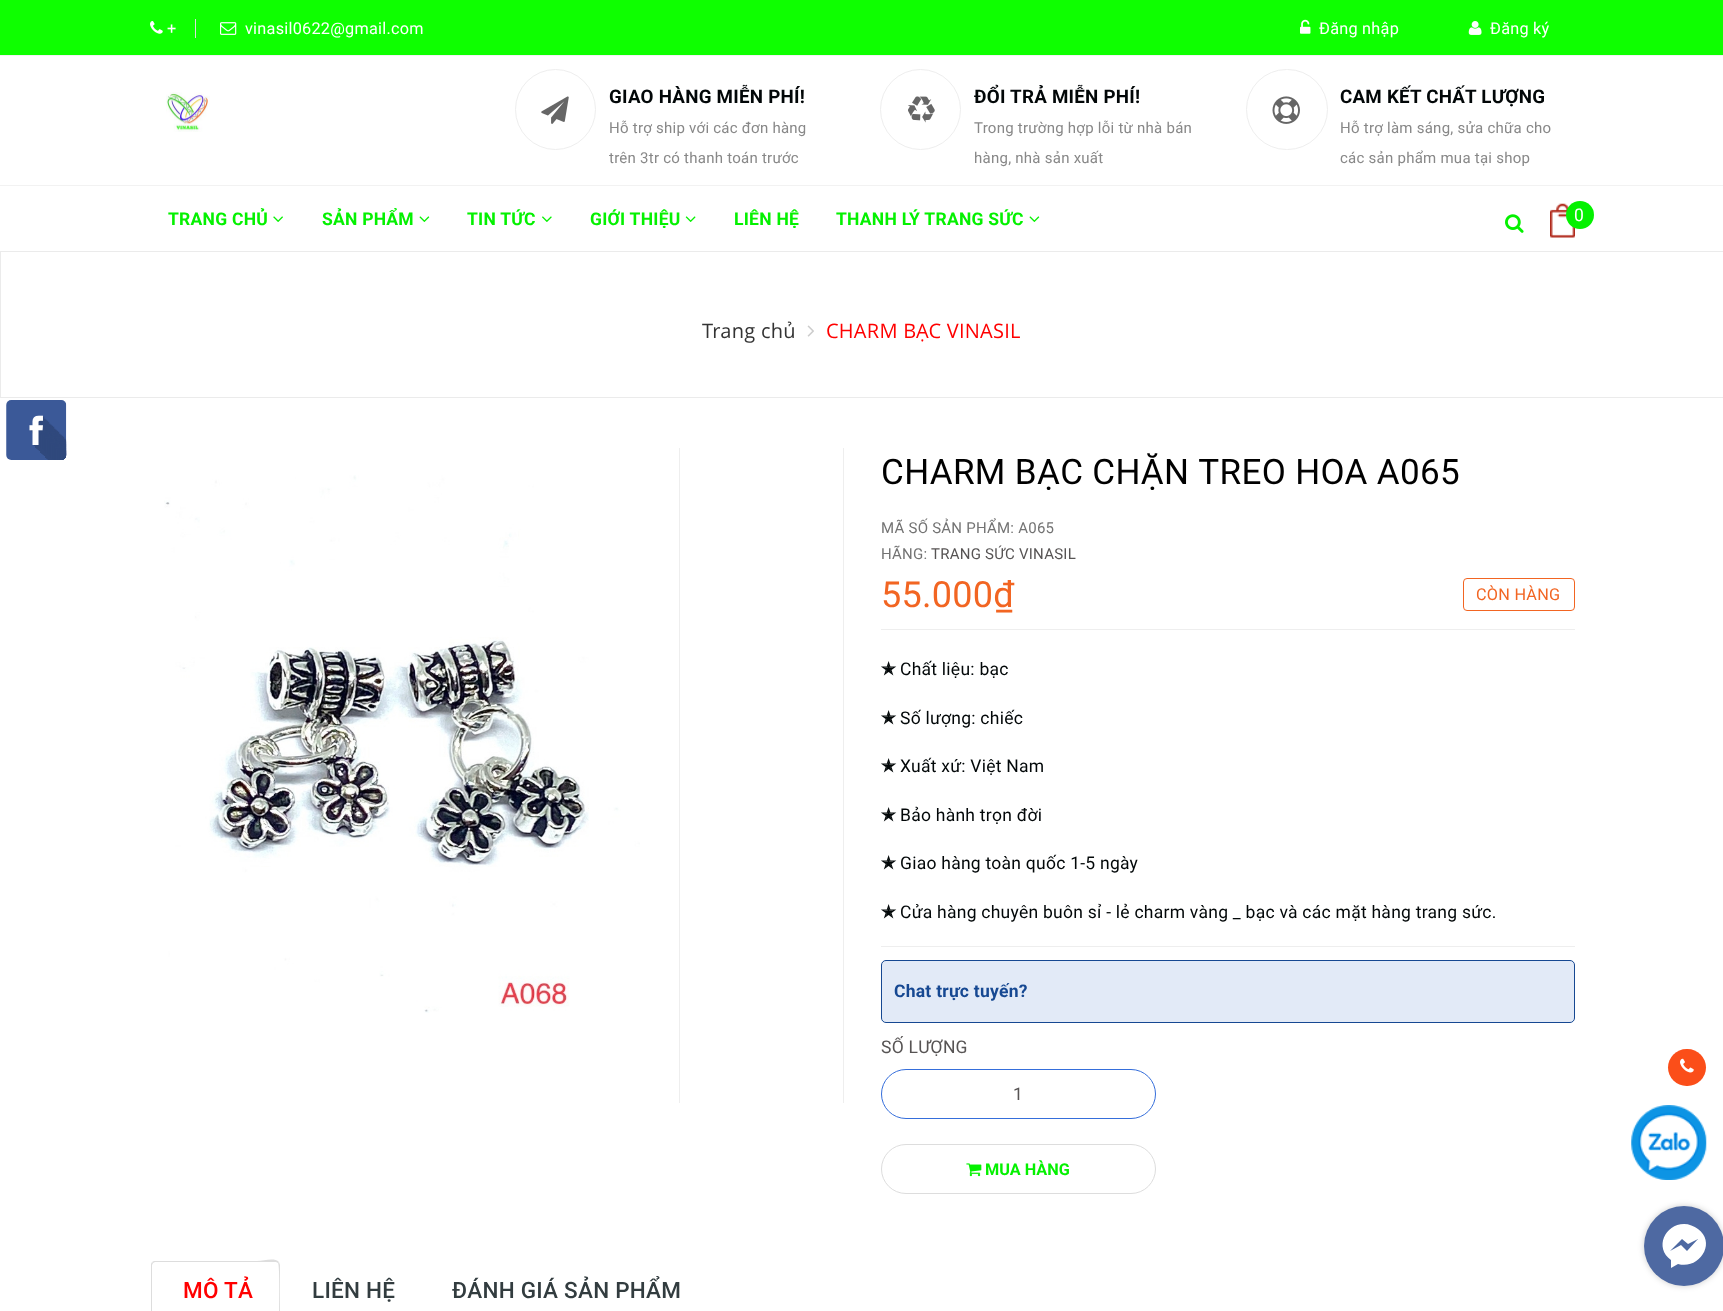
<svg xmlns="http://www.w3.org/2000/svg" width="1723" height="1311">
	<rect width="100%" height="100%" fill="#FFFFFF" />
	<rect x="0" y="0" width="1723" height="55" fill="#0EFF00" />
	<rect x="0" y="55" width="1723" height="1" fill="#F2F2F2" />
	<rect x="195" y="19" width="1" height="19" fill="#DDDDDD" />
	<image x="150" y="21" width="13" height="13" href="assets/img1.png" />
	<text x="167" y="34" font-family="Roboto" font-size="16.25" letter-spacing="0.25" fill="#FFFFFF">+</text>
	<image x="220" y="22" width="17" height="13" href="assets/img2.png" />
	<text x="245" y="34" font-family="Roboto" font-size="16.25" letter-spacing="0.25" fill="#FFFFFF">vinasil0622@gmail.com</text>
	<image x="1300" y="19" width="11" height="15" href="assets/img3.png" />
	<text x="1319" y="34" font-family="Roboto" font-size="16.25" letter-spacing="0.25" fill="#FFFFFF">Đăng nhập</text>
	<image x="1468" y="21" width="14" height="14" href="assets/img4.png" />
	<text x="1490" y="34" font-family="Roboto" font-size="16.25" letter-spacing="0.25" fill="#FFFFFF">Đăng ký</text>
	<image x="166" y="92" width="44" height="40" href="assets/img5.png" />
	<circle cx="555.5" cy="109.5" r="40" fill="none" stroke="#EEEEEE" />
	<image x="541" y="96" width="28" height="28" href="assets/img6.png" />
	<text x="609" y="103" font-family="Roboto" font-size="18.75" font-weight="700" letter-spacing="0.25" fill="#020708">GIAO HÀNG MIỄN PHÍ!</text>
	<g font-family="Roboto" font-size="15" letter-spacing="0.25" fill="#888888">
		<text x="609" y="133">Hỗ trợ ship với các đơn hàng</text>
		<text x="609" y="163">trên 3tr có thanh toán trước</text>
	</g>
	<circle cx="920.5" cy="109.5" r="40" fill="none" stroke="#EEEEEE" />
	<image x="908" y="96" width="27" height="27" href="assets/img7.png" />
	<text x="974" y="103" font-family="Roboto" font-size="18.75" font-weight="700" letter-spacing="0.25" fill="#020708">ĐỔI TRẢ MIỄN PHÍ!</text>
	<g font-family="Roboto" font-size="15" letter-spacing="0.25" fill="#888888">
		<text x="974" y="133">Trong trường hợp lỗi từ nhà bán</text>
		<text x="974" y="163">hàng, nhà sản xuất</text>
	</g>
	<rect x="1246.5" y="69.5" width="81" height="80" rx="40" fill="none" stroke="#EEEEEE" />
	<image x="1272" y="96" width="28" height="28" href="assets/img8.png" />
	<text x="1340" y="103" font-family="Roboto" font-size="18.75" font-weight="700" letter-spacing="0.25" fill="#020708">CAM KẾT CHẤT LƯỢNG</text>
	<g font-family="Roboto" font-size="15" letter-spacing="0.25" fill="#888888">
		<text x="1340" y="133">Hỗ trợ làm sáng, sửa chữa cho</text>
		<text x="1340" y="163">các sản phẩm mua tại shop</text>
	</g>
	<rect x="0" y="185" width="1723" height="1" fill="#F2F2F2" />
	<text x="168" y="225" font-family="Roboto" font-size="17.5" font-weight="700" letter-spacing="0.25" fill="#04F100">TRANG CHỦ</text>
	<image x="273" y="216" width="10" height="6" href="assets/img9.png" />
	<text x="322" y="225" font-family="Roboto" font-size="17.5" font-weight="700" letter-spacing="0.25" fill="#04F100">SẢN PHẨM</text>
	<image x="419" y="216" width="11" height="6" href="assets/img10.png" />
	<text x="467" y="225" font-family="Roboto" font-size="17.5" font-weight="700" letter-spacing="0.25" fill="#04F100">TIN TỨC</text>
	<image x="542" y="216" width="10" height="6" href="assets/img11.png" />
	<text x="590" y="225" font-family="Roboto" font-size="17.5" font-weight="700" letter-spacing="0.25" fill="#04F100">GIỚI THIỆU</text>
	<image x="685" y="216" width="11" height="6" href="assets/img12.png" />
	<g font-family="Roboto" font-size="17.5" font-weight="700" letter-spacing="0.25" fill="#04F100">
		<text x="734" y="225">LIÊN HỆ</text>
		<text x="836" y="225">THANH LÝ TRANG SỨC</text>
	</g>
	<image x="1029" y="216" width="11" height="6" href="assets/img10.png" />
	<image x="1505" y="214" width="19" height="19" href="assets/img13.png" />
	<image x="1550" y="203" width="25" height="35" href="assets/img14.png" />
	<circle cx="1580" cy="215" r="14" fill="#04F100" />
	<text x="1574" y="221" font-family="Roboto" font-size="17.5" letter-spacing="0.25" fill="#FFFFFF">0</text>
	<rect x="0.5" y="251.5" width="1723" height="146" fill="none" stroke="#EBEBEB" />
	<text x="702" y="338" font-family="Open Sans" font-size="20" letter-spacing="0.25" fill="#333333">Trang chủ</text>
	<image x="807" y="325" width="7" height="12" href="assets/img15.png" />
	<text x="826" y="338" font-family="Open Sans" font-size="20" letter-spacing="0.25" fill="#FF0000">CHARM BẠC VINASIL</text>
	<image x="6" y="400" width="61" height="60" href="assets/img16.png" />
	<rect x="843" y="448" width="1" height="655" fill="#EEEEEE" />
	<rect x="679" y="448" width="1" height="655" fill="#EEEEEE" />
	<image x="164" y="475" width="476" height="538" href="assets/img17.png" />
	<text x="881" y="484" font-family="Roboto" font-size="35" letter-spacing="0.35" fill="#000000">CHARM BẠC CHẶN TREO HOA A065</text>
	<g font-family="Roboto" font-size="15" letter-spacing="0.25" fill="#737373">
		<text x="881" y="533">MÃ SỐ SẢN PHẨM: A065</text>
		<text x="881" y="559">HÃNG:</text>
	</g>
	<text x="931" y="559" font-family="Roboto" font-size="15" letter-spacing="0.25" fill="#575454">TRANG SỨC VINASIL</text>
	<rect x="881" y="629" width="694" height="1" fill="#EEEEEE" />
	<text x="881" y="607" font-family="Roboto" font-size="36" letter-spacing="0.25" fill="#F26522">55.000₫</text>
	<rect x="1463.5" y="578.5" width="111" height="32" rx="3.5" fill="none" stroke="#F26522" />
	<text x="1476" y="600" font-family="Roboto" font-size="16.25" letter-spacing="0.25" fill="#F26522">CÒN HÀNG</text>
	<rect x="881" y="946" width="694" height="1" fill="#EEEEEE" />
	<text x="881" y="675" font-family="DejaVu Sans" font-size="17.5" font-weight="700" letter-spacing="0.25" fill="#020708">✭</text>
	<text x="900" y="675" font-family="Roboto" font-size="17.5" letter-spacing="0.25" fill="#020708">Chất liệu: bạc</text>
	<text x="881" y="724" font-family="DejaVu Sans" font-size="17.5" font-weight="700" letter-spacing="0.25" fill="#020708">✭</text>
	<text x="900" y="724" font-family="Roboto" font-size="17.5" letter-spacing="0.25" fill="#020708">Số lượng: chiếc</text>
	<text x="881" y="772" font-family="DejaVu Sans" font-size="17.5" font-weight="700" letter-spacing="0.25" fill="#020708">✭</text>
	<text x="900" y="772" font-family="Roboto" font-size="17.5" letter-spacing="0.25" fill="#020708">Xuất xứ: Việt Nam</text>
	<text x="881" y="821" font-family="DejaVu Sans" font-size="17.5" font-weight="700" letter-spacing="0.25" fill="#020708">✭</text>
	<text x="900" y="821" font-family="Roboto" font-size="17.5" letter-spacing="0.25" fill="#020708">Bảo hành trọn đời</text>
	<text x="881" y="869" font-family="DejaVu Sans" font-size="17.5" font-weight="700" letter-spacing="0.25" fill="#020708">✭</text>
	<text x="900" y="869" font-family="Roboto" font-size="17.5" letter-spacing="0.25" fill="#020708">Giao hàng toàn quốc 1-5 ngày</text>
	<text x="881" y="918" font-family="DejaVu Sans" font-size="17.5" font-weight="700" letter-spacing="0.25" fill="#020708">✭</text>
	<text x="900" y="918" font-family="Roboto" font-size="17.5" letter-spacing="0.25" fill="#020708">Cửa hàng chuyên buôn sỉ - lẻ charm vàng _ bạc và các mặt hàng trang sức.</text>
	<rect x="881.5" y="960.5" width="693" height="62" rx="4.5" fill="#E2EAF7" stroke="#164892" />
	<text x="894" y="997" font-family="Roboto" font-size="17.5" font-weight="700" letter-spacing="0.25" fill="#164892">Chat trực tuyến?</text>
	<text x="881" y="1053" font-family="Roboto" font-size="17.5" letter-spacing="0.25" fill="#575454">SỐ LƯỢNG</text>
	<rect x="881.5" y="1069.5" width="274" height="49" rx="24.5" fill="none" stroke="#356EDB" />
	<text x="1013" y="1100" font-family="Roboto" font-size="17.5" letter-spacing="0.25" fill="#575454">1</text>
	<rect x="881.5" y="1144.5" width="274" height="49" rx="24.5" fill="none" stroke="#DDDDDD" />
	<image x="966" y="1163" width="16" height="14" href="assets/img18.png" />
	<text x="985" y="1175" font-family="Roboto" font-size="16.25" font-weight="700" fill="#04F100">MUA HÀNG</text>
	<path d="M155 1262L153 1263L152 1262L154 1261H257C264 1261 274 1257 279 1262L278 1263L276 1262Z" fill="#DDDDDD" />
	<path d="M280 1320V1265L279 1262L278 1263C280 1265 279 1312 279 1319Z" fill="#DDDDDD" />
	<path d="M151 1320V1264L152 1262L153 1263L152 1265V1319Z" fill="#DDDDDD" />
	<text x="183" y="1298" font-family="Roboto" font-size="22.5" font-weight="500" letter-spacing="0.25" fill="#FF0000">MÔ TẢ</text>
	<g font-family="Roboto" font-size="22.5" font-weight="500" letter-spacing="0.25" fill="#323C3F">
		<text x="312" y="1298">LIÊN HỆ</text>
		<text x="452" y="1298">ĐÁNH GIÁ SẢN PHẨM</text>
	</g>
	<rect x="1668" y="1049" width="38" height="37" rx="18.5" fill="#FB4E19" />
	<image x="1680" y="1058" width="14" height="15" href="assets/img19.png" />
	<image x="1631" y="1105" width="76" height="75" href="assets/img20.png" />
	<rect x="1644" y="1206" width="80" height="80" rx="40" fill="#000000" fill-opacity="0.2" filter="blur(3px)" />
	<circle cx="1684" cy="1246" r="40" fill="#4E69A2" />
	<path d="M1684 1224C1665 1224 1654 1248 1671 1260V1268L1678 1264C1699 1270 1717 1243 1698 1229C1694 1226 1689 1224 1684 1224ZM1687 1251L1681 1245L1670 1251L1682 1239L1688 1244L1698 1239Z" fill="#FFFFFF" />
</svg>
